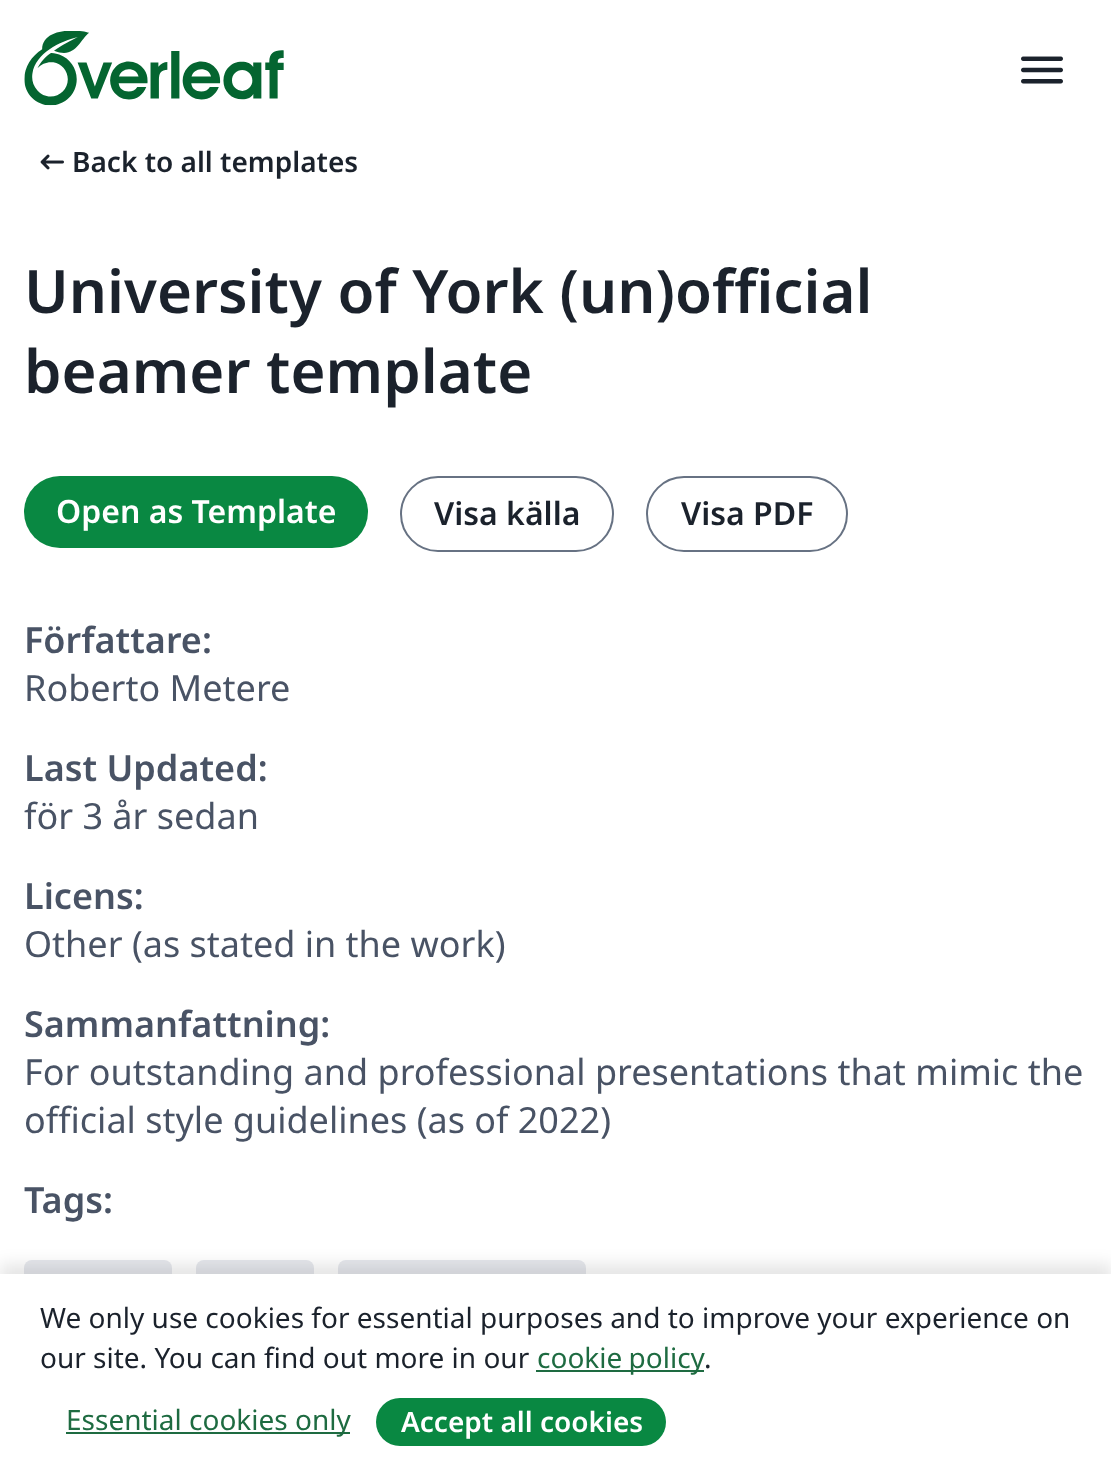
<svg xmlns="http://www.w3.org/2000/svg" width="1111" height="1470">
	<rect width="100%" height="100%" fill="#FFFFFF" />
	<image x="24" y="31" width="260" height="75" href="assets/img1.png" />
	<image x="1021" y="56" width="42" height="28" href="assets/img2.png" />
	<image x="40" y="154" width="24" height="16" href="assets/img3.png" />
	<text x="72" y="172" font-family="Noto Sans" font-size="28" font-weight="600" fill="#1B222C">Back to all templates</text>
	<g font-family="Noto Sans" font-size="60" font-weight="600" fill="#1B222C">
		<text x="24" y="313">University of York (un)official</text>
		<text x="24" y="393">beamer template</text>
	</g>
	<rect x="24" y="476" width="344" height="72" rx="36" fill="#098842" />
	<text x="56" y="523" font-family="Noto Sans" font-size="32" font-weight="600" fill="#FFFFFF">Open as Template</text>
	<rect x="401" y="477" width="212" height="74" rx="37" fill="none" stroke="#677283" stroke-width="2" />
	<text x="434" y="525" font-family="Noto Sans" font-size="32" font-weight="600" fill="#1B222C">Visa källa</text>
	<rect x="647" y="477" width="200" height="74" rx="37" fill="none" stroke="#677283" stroke-width="2" />
	<text x="681" y="525" font-family="Noto Sans" font-size="32" font-weight="600" fill="#1B222C">Visa PDF</text>
	<text x="24" y="653" font-family="Noto Sans" font-size="36" font-weight="600" fill="#495365">Författare:</text>
	<text x="24" y="701" font-family="Noto Sans" font-size="36" fill="#495365">Roberto Metere</text>
	<text x="24" y="781" font-family="Noto Sans" font-size="36" font-weight="600" fill="#495365">Last Updated:</text>
	<text x="24" y="829" font-family="Noto Sans" font-size="36" fill="#495365">för 3 år sedan</text>
	<text x="24" y="909" font-family="Noto Sans" font-size="36" font-weight="600" fill="#495365">Licens:</text>
	<text x="24" y="957" font-family="Noto Sans" font-size="36" fill="#495365">Other (as stated in the work)</text>
	<text x="24" y="1037" font-family="Noto Sans" font-size="36" font-weight="600" fill="#495365">Sammanfattning:</text>
	<g font-family="Noto Sans" font-size="36" fill="#495365">
		<text x="24" y="1085">For outstanding and professional presentations that mimic the</text>
		<text x="24" y="1133">official style guidelines (as of 2022)</text>
	</g>
	<text x="24" y="1213" font-family="Noto Sans" font-size="36" font-weight="600" fill="#495365">Tags:</text>
	<rect x="24" y="1260" width="148" height="48" rx="8" fill="#E7E9EE" />
	<rect x="196" y="1260" width="118" height="48" rx="8" fill="#E7E9EE" />
	<rect x="338" y="1260" width="248" height="48" rx="8" fill="#E7E9EE" />
	<rect x="0" y="1264" width="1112" height="196" fill="#000000" fill-opacity="0.1" filter="blur(8px)" />
	<rect x="0" y="1274" width="1111" height="196" fill="#FFFFFF" />
	<g font-family="Noto Sans" font-size="28" fill="#1B222C">
		<text x="40" y="1328">We only use cookies for essential purposes and to improve your experience on</text>
		<text x="40" y="1368">our site. You can find out more in our</text>
	</g>
	<rect x="536" y="1370" width="168" height="2" fill="#1E6B41" />
	<text x="537" y="1368" word-spacing="-1" font-family="Noto Sans" font-size="28" fill="#1E6B41">cookie policy</text>
	<text x="704" y="1368" font-family="Noto Sans" font-size="28" fill="#1B222C">.</text>
	<rect x="66" y="1432" width="284" height="2" fill="#1E6B41" />
	<text x="66" y="1430" font-family="Noto Sans" font-size="28" fill="#1E6B41">Essential cookies only</text>
	<rect x="376" y="1398" width="290" height="48" rx="24" fill="#098842" />
	<text x="401" y="1432" font-family="Noto Sans" font-size="28" font-weight="600" fill="#FFFFFF">Accept all cookies</text>
</svg>
